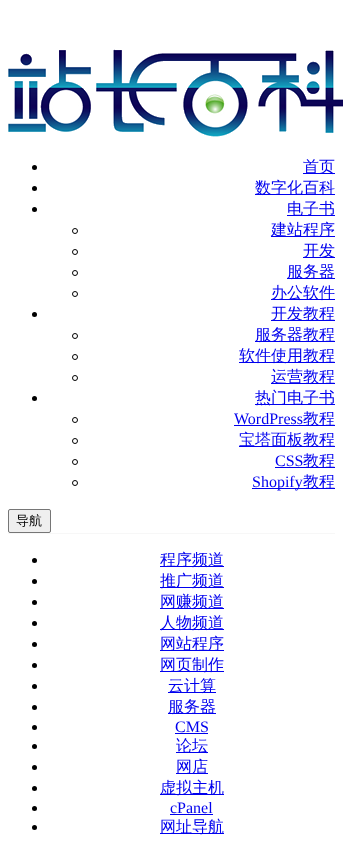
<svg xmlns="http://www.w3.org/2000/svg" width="343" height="854">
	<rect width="100%" height="100%" fill="#FFFFFF" />
	<image x="8" y="49" width="335" height="88" href="assets/img1.png" />
	<circle cx="34.5" cy="167.5" r="2.5" fill="#000000" />
	<rect x="303" y="173" width="32" height="1" fill="#0000EE" />
	<text x="303" y="172" font-family="WenQuanYi Zen Hei" font-size="16" font-weight="500" fill="#0000EE">首页</text>
	<circle cx="34.5" cy="188.5" r="2.5" fill="#000000" />
	<rect x="255" y="194" width="80" height="1" fill="#0000EE" />
	<text x="255" y="193" font-family="WenQuanYi Zen Hei" font-size="16" font-weight="500" fill="#0000EE">数字化百科</text>
	<circle cx="34.5" cy="209.5" r="2.5" fill="#000000" />
	<rect x="287" y="215" width="48" height="1" fill="#0000EE" />
	<text x="287" y="214" font-family="WenQuanYi Zen Hei" font-size="16" font-weight="500" fill="#0000EE">电子书</text>
	<circle cx="75" cy="231" r="2.5" fill="none" stroke="#000000" />
	<rect x="271" y="236" width="64" height="1" fill="#0000EE" />
	<text x="271" y="235" font-family="WenQuanYi Zen Hei" font-size="16" font-weight="500" fill="#0000EE">建站程序</text>
	<circle cx="75" cy="252" r="2.5" fill="none" stroke="#000000" />
	<rect x="303" y="257" width="32" height="1" fill="#0000EE" />
	<text x="303" y="256" font-family="WenQuanYi Zen Hei" font-size="16" font-weight="500" fill="#0000EE">开发</text>
	<circle cx="75" cy="273" r="2.5" fill="none" stroke="#000000" />
	<rect x="287" y="278" width="48" height="1" fill="#0000EE" />
	<text x="287" y="277" font-family="WenQuanYi Zen Hei" font-size="16" font-weight="500" fill="#0000EE">服务器</text>
	<circle cx="75" cy="294" r="2.5" fill="none" stroke="#000000" />
	<rect x="271" y="299" width="64" height="1" fill="#0000EE" />
	<text x="271" y="298" font-family="WenQuanYi Zen Hei" font-size="16" font-weight="500" fill="#0000EE">办公软件</text>
	<circle cx="34.5" cy="314.5" r="2.5" fill="#000000" />
	<rect x="271" y="320" width="64" height="1" fill="#0000EE" />
	<text x="271" y="319" font-family="WenQuanYi Zen Hei" font-size="16" font-weight="500" fill="#0000EE">开发教程</text>
	<circle cx="75" cy="336" r="2.5" fill="none" stroke="#000000" />
	<rect x="255" y="341" width="80" height="1" fill="#0000EE" />
	<text x="255" y="340" font-family="WenQuanYi Zen Hei" font-size="16" font-weight="500" fill="#0000EE">服务器教程</text>
	<circle cx="75" cy="357" r="2.5" fill="none" stroke="#000000" />
	<rect x="239" y="362" width="96" height="1" fill="#0000EE" />
	<text x="239" y="361" font-family="WenQuanYi Zen Hei" font-size="16" font-weight="500" fill="#0000EE">软件使用教程</text>
	<circle cx="75" cy="378" r="2.5" fill="none" stroke="#000000" />
	<rect x="271" y="383" width="64" height="1" fill="#0000EE" />
	<text x="271" y="382" font-family="WenQuanYi Zen Hei" font-size="16" font-weight="500" fill="#0000EE">运营教程</text>
	<circle cx="34.5" cy="398.5" r="2.5" fill="#000000" />
	<rect x="255" y="404" width="80" height="1" fill="#0000EE" />
	<text x="255" y="403" font-family="WenQuanYi Zen Hei" font-size="16" font-weight="500" fill="#0000EE">热门电子书</text>
	<circle cx="75" cy="420" r="2.5" fill="none" stroke="#000000" />
	<text x="234" y="424" font-family="Liberation Serif" font-size="16" fill="#0000EE">WordPress</text>
	<rect x="234" y="425" width="101" height="1" fill="#0000EE" />
	<text x="303" y="424" font-family="WenQuanYi Zen Hei" font-size="16" font-weight="500" fill="#0000EE">教程</text>
	<circle cx="75" cy="441" r="2.5" fill="none" stroke="#000000" />
	<rect x="239" y="446" width="96" height="1" fill="#0000EE" />
	<text x="239" y="445" font-family="WenQuanYi Zen Hei" font-size="16" font-weight="500" fill="#0000EE">宝塔面板教程</text>
	<circle cx="75" cy="462" r="2.5" fill="none" stroke="#000000" />
	<text x="275" y="466" font-family="Liberation Serif" font-size="16" fill="#0000EE">CSS</text>
	<rect x="275" y="467" width="60" height="1" fill="#0000EE" />
	<text x="303" y="466" font-family="WenQuanYi Zen Hei" font-size="16" font-weight="500" fill="#0000EE">教程</text>
	<circle cx="75" cy="483" r="2.5" fill="none" stroke="#000000" />
	<rect x="252" y="488" width="83" height="1" fill="#0000EE" />
	<text x="252" y="487" font-family="Liberation Serif" font-size="16" fill="#0000EE">Shopify</text>
	<text x="303" y="487" font-family="WenQuanYi Zen Hei" font-size="16" font-weight="500" fill="#0000EE">教程</text>
	<rect x="8.5" y="509.5" width="42" height="23" rx="1.5" fill="#EFEFEF" stroke="#767676" />
	<text x="16" y="525" font-family="WenQuanYi Zen Hei" font-size="13" font-weight="500" fill="#000000">导航</text>
	<rect x="8" y="533" width="327" height="1" fill="#F7F7F7" />
	<circle cx="34.5" cy="560.5" r="2.5" fill="#000000" />
	<rect x="160" y="566" width="64" height="1" fill="#0000EE" />
	<text x="160" y="565" font-family="WenQuanYi Zen Hei" font-size="16" font-weight="500" fill="#0000EE">程序频道</text>
	<circle cx="34.5" cy="581.5" r="2.5" fill="#000000" />
	<rect x="160" y="587" width="64" height="1" fill="#0000EE" />
	<text x="160" y="586" font-family="WenQuanYi Zen Hei" font-size="16" font-weight="500" fill="#0000EE">推广频道</text>
	<circle cx="34.5" cy="602.5" r="2.5" fill="#000000" />
	<rect x="160" y="608" width="64" height="1" fill="#0000EE" />
	<text x="160" y="607" font-family="WenQuanYi Zen Hei" font-size="16" font-weight="500" fill="#0000EE">网赚频道</text>
	<circle cx="34.5" cy="623.5" r="2.5" fill="#000000" />
	<rect x="160" y="629" width="64" height="1" fill="#0000EE" />
	<text x="160" y="628" font-family="WenQuanYi Zen Hei" font-size="16" font-weight="500" fill="#0000EE">人物频道</text>
	<circle cx="34.5" cy="644.5" r="2.5" fill="#000000" />
	<rect x="160" y="650" width="64" height="1" fill="#0000EE" />
	<text x="160" y="649" font-family="WenQuanYi Zen Hei" font-size="16" font-weight="500" fill="#0000EE">网站程序</text>
	<circle cx="34.5" cy="665.5" r="2.5" fill="#000000" />
	<rect x="160" y="671" width="64" height="1" fill="#0000EE" />
	<text x="160" y="670" font-family="WenQuanYi Zen Hei" font-size="16" font-weight="500" fill="#0000EE">网页制作</text>
	<circle cx="34.5" cy="686.5" r="2.5" fill="#000000" />
	<rect x="168" y="692" width="48" height="1" fill="#0000EE" />
	<text x="168" y="691" font-family="WenQuanYi Zen Hei" font-size="16" font-weight="500" fill="#0000EE">云计算</text>
	<circle cx="34.5" cy="707.5" r="2.5" fill="#000000" />
	<rect x="168" y="713" width="48" height="1" fill="#0000EE" />
	<text x="168" y="712" font-family="WenQuanYi Zen Hei" font-size="16" font-weight="500" fill="#0000EE">服务器</text>
	<circle cx="34.5" cy="727.5" r="2.5" fill="#000000" />
	<text x="175" y="732" font-family="Liberation Serif" font-size="16" fill="#0000EE">CMS</text>
	<rect x="175" y="733" width="33" height="1" fill="#0000EE" />
	<circle cx="34.5" cy="746.5" r="2.5" fill="#000000" />
	<rect x="176" y="752" width="32" height="1" fill="#0000EE" />
	<text x="176" y="751" font-family="WenQuanYi Zen Hei" font-size="16" font-weight="500" fill="#0000EE">论坛</text>
	<circle cx="34.5" cy="767.5" r="2.5" fill="#000000" />
	<rect x="176" y="773" width="32" height="1" fill="#0000EE" />
	<text x="176" y="772" font-family="WenQuanYi Zen Hei" font-size="16" font-weight="500" fill="#0000EE">网店</text>
	<circle cx="34.5" cy="788.5" r="2.5" fill="#000000" />
	<rect x="160" y="794" width="64" height="1" fill="#0000EE" />
	<text x="160" y="793" font-family="WenQuanYi Zen Hei" font-size="16" font-weight="500" fill="#0000EE">虚拟主机</text>
	<circle cx="34.5" cy="808.5" r="2.5" fill="#000000" />
	<text x="170" y="813" font-family="Liberation Serif" font-size="16" fill="#0000EE">cPanel</text>
	<rect x="170" y="814" width="43" height="1" fill="#0000EE" />
	<circle cx="34.5" cy="827.5" r="2.5" fill="#000000" />
	<rect x="160" y="833" width="64" height="1" fill="#0000EE" />
	<text x="160" y="832" font-family="WenQuanYi Zen Hei" font-size="16" font-weight="500" fill="#0000EE">网址导航</text>
</svg>
